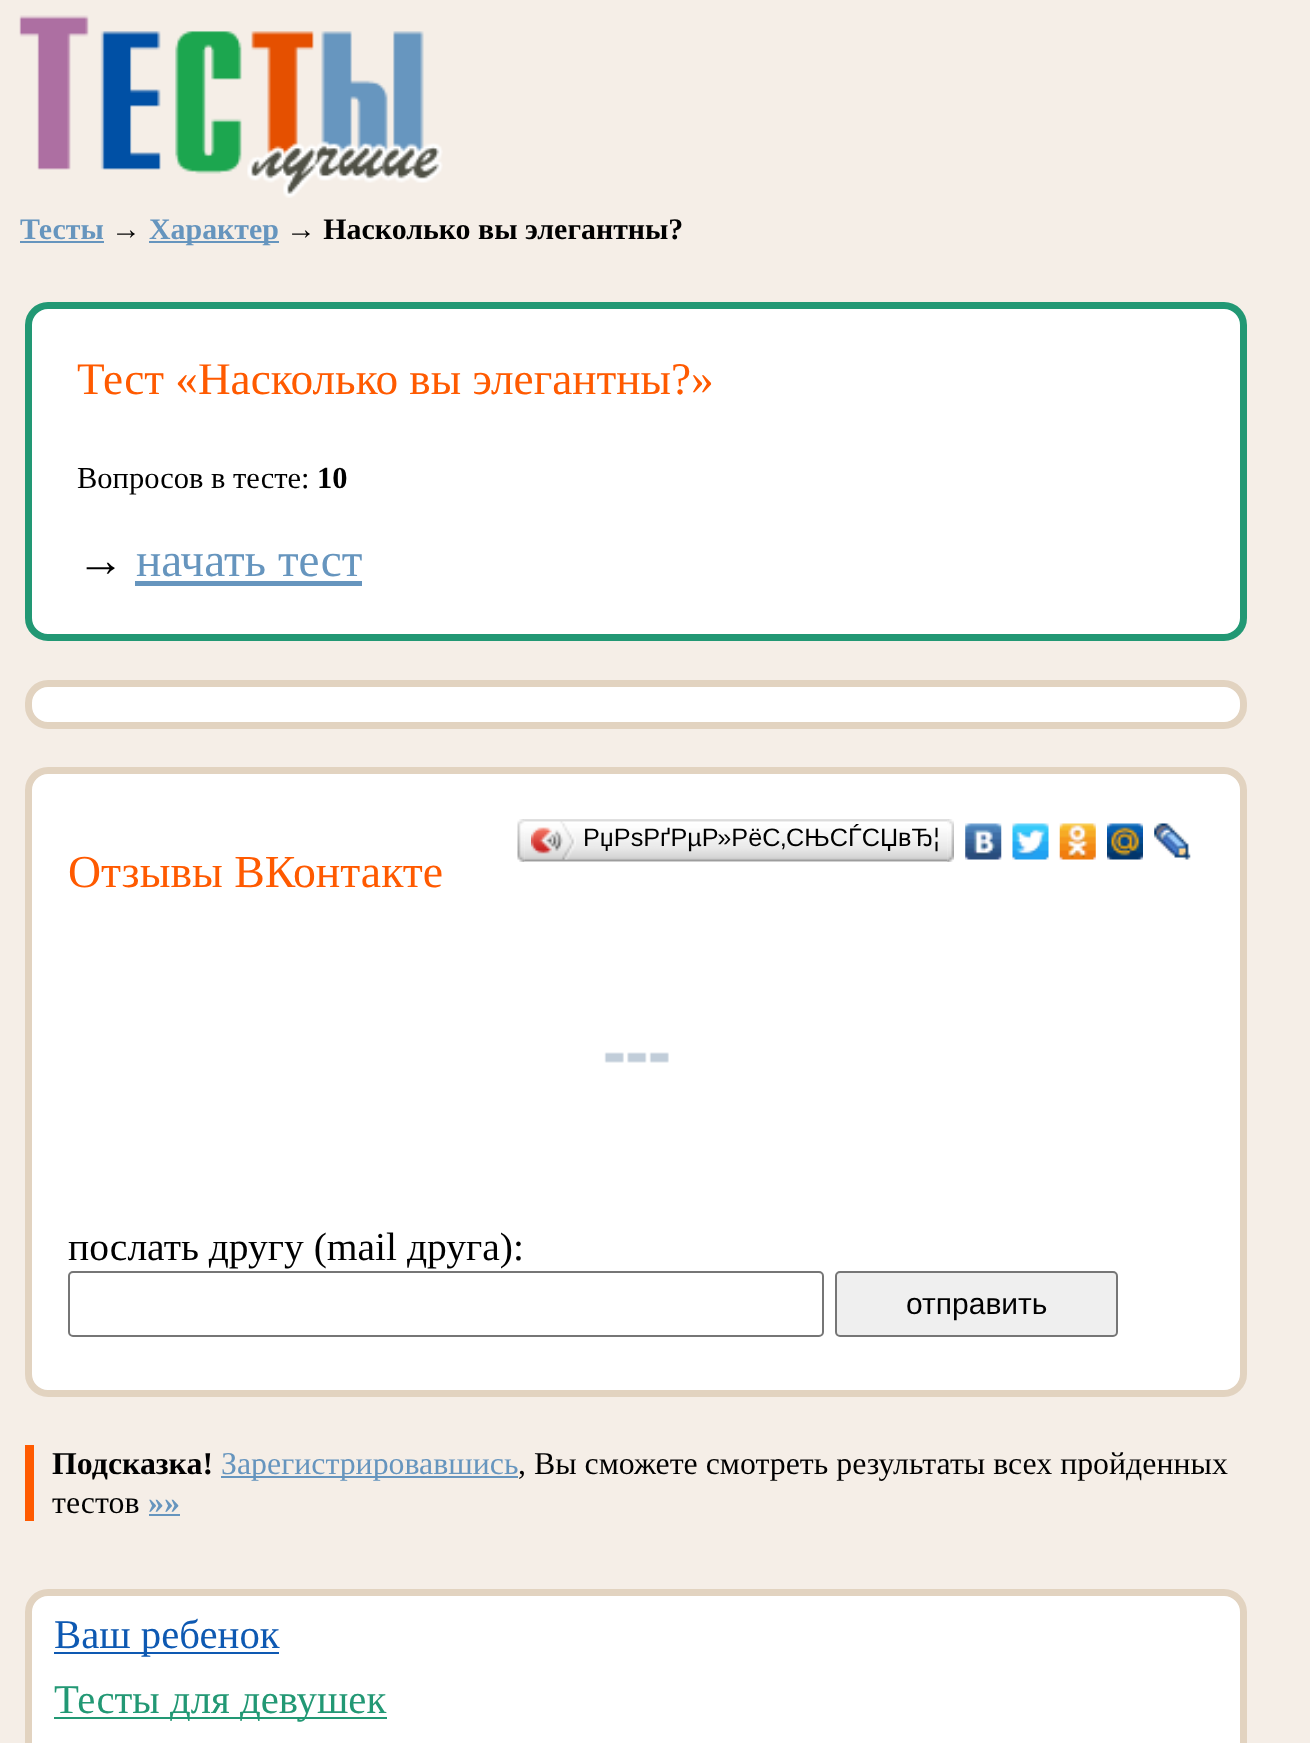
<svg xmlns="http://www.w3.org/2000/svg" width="1310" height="1743">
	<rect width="100%" height="100%" fill="#F5EEE7" />
	<image x="19" y="15" width="424" height="183" href="assets/img1.png" />
	<text x="20" y="239" font-family="Liberation Serif" font-size="29.9" font-weight="700" fill="#6695BE">Тесты</text>
	<rect x="20" y="241" width="84" height="2" fill="#6695BE" />
	<text x="111" y="239" font-family="Liberation Serif" font-size="29.9" font-weight="700" fill="#000000">→</text>
	<rect x="149" y="241" width="130" height="2" fill="#6695BE" />
	<text x="149" y="239" font-family="Liberation Serif" font-size="29.9" font-weight="700" fill="#6695BE">Характер</text>
	<text x="286" y="239" font-family="Liberation Serif" font-size="29.9" font-weight="700" fill="#000000">→ Насколько вы элегантны?</text>
	<rect x="28.5" y="305.5" width="1215" height="332" rx="19.5" fill="#FFFFFF" stroke="#229874" stroke-width="7" />
	<text x="77" y="394" font-family="Liberation Serif" font-size="45.25" fill="#FF5A00">Тест «Насколько вы элегантны?»</text>
	<text x="77" y="488" font-family="Liberation Serif" font-size="30.5" fill="#000000">Вопросов в тесте:</text>
	<text x="317" y="488" font-family="Liberation Serif" font-size="30.5" font-weight="700" fill="#000000">10</text>
	<text x="77" y="576" font-family="Liberation Serif" font-size="47.25" fill="#000000">→</text>
	<text x="136" y="576" font-family="Liberation Serif" font-size="47.25" fill="#6695BE">начать тест</text>
	<rect x="135" y="581" width="227" height="5" fill="#6695BE" />
	<rect x="28.5" y="683.5" width="1215" height="42" rx="19.5" fill="#FFFFFF" stroke="#E2D3C0" stroke-width="7" />
	<rect x="28.5" y="770.5" width="1215" height="623" rx="19.5" fill="#FFFFFF" stroke="#E2D3C0" stroke-width="7" />
	<image x="524" y="819" width="424" height="43" href="assets/img2.png" />
	<image x="517" y="819" width="8" height="43" href="assets/img3.png" />
	<image x="531" y="821" width="45" height="39" href="assets/img4.png" />
	<text x="583" y="846" font-family="Liberation Sans" font-size="25.25" fill="#000000">РџРѕРґРµР»РёС‚СЊСЃСЏвЂ¦</text>
	<image x="947" y="819" width="7" height="43" href="assets/img5.png" />
	<image x="965" y="823" width="37" height="37" href="assets/img6.png" />
	<image x="1012" y="823" width="37" height="37" href="assets/img7.png" />
	<image x="1059" y="823" width="37" height="37" href="assets/img8.png" />
	<image x="1107" y="823" width="36" height="37" href="assets/img9.png" />
	<image x="1154" y="823" width="37" height="37" href="assets/img10.png" />
	<text x="68" y="887" font-family="Liberation Serif" font-size="45.75" fill="#FF5A00">Отзывы ВКонтакте</text>
	<image x="604" y="1052" width="65" height="11" href="assets/img11.png" />
	<text x="68" y="1260" font-family="Liberation Serif" font-size="39.5" fill="#000000">послать другу (mail друга):</text>
	<rect x="69" y="1272" width="754" height="64" rx="4" fill="none" stroke="#767676" stroke-width="2" />
	<rect x="836" y="1272" width="281" height="64" rx="4" fill="#EFEFEF" stroke="#767676" stroke-width="2" />
	<text x="906" y="1314" font-family="Liberation Sans" font-size="30" fill="#000000">отправить</text>
	<rect x="25" y="1445" width="9" height="76" fill="#FF5A00" />
	<text x="52" y="1474" font-family="Liberation Serif" font-size="31.85" font-weight="700" fill="#000000">Подсказка!</text>
	<rect x="221" y="1476" width="297" height="2" fill="#6695BE" />
	<text x="221" y="1474" font-family="Liberation Serif" font-size="31.85" fill="#6695BE">Зарегистрировавшись</text>
	<g font-family="Liberation Serif" font-size="31.85" fill="#000000">
		<text x="518" y="1474">, Вы сможете смотреть результаты всех пройденных</text>
		<text x="52" y="1513">тестов</text>
	</g>
	<text x="148" y="1513" font-family="Liberation Serif" font-size="31.85" font-weight="700" fill="#6695BE">»»</text>
	<rect x="149" y="1514" width="31" height="2" fill="#6695BE" />
	<rect x="28.5" y="1592.5" width="1215" height="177" rx="19.5" fill="#FFFFFF" stroke="#E2D3C0" stroke-width="7" />
	<rect x="54" y="1652" width="225" height="2" fill="#0E59B2" />
	<text x="54" y="1648" font-family="Liberation Serif" font-size="40.75" fill="#0E59B2">Ваш ребенок</text>
	<rect x="54" y="1717" width="333" height="2" fill="#229874" />
	<text x="54" y="1713" font-family="Liberation Serif" font-size="40.75" fill="#229874">Тесты для девушек</text>
</svg>
